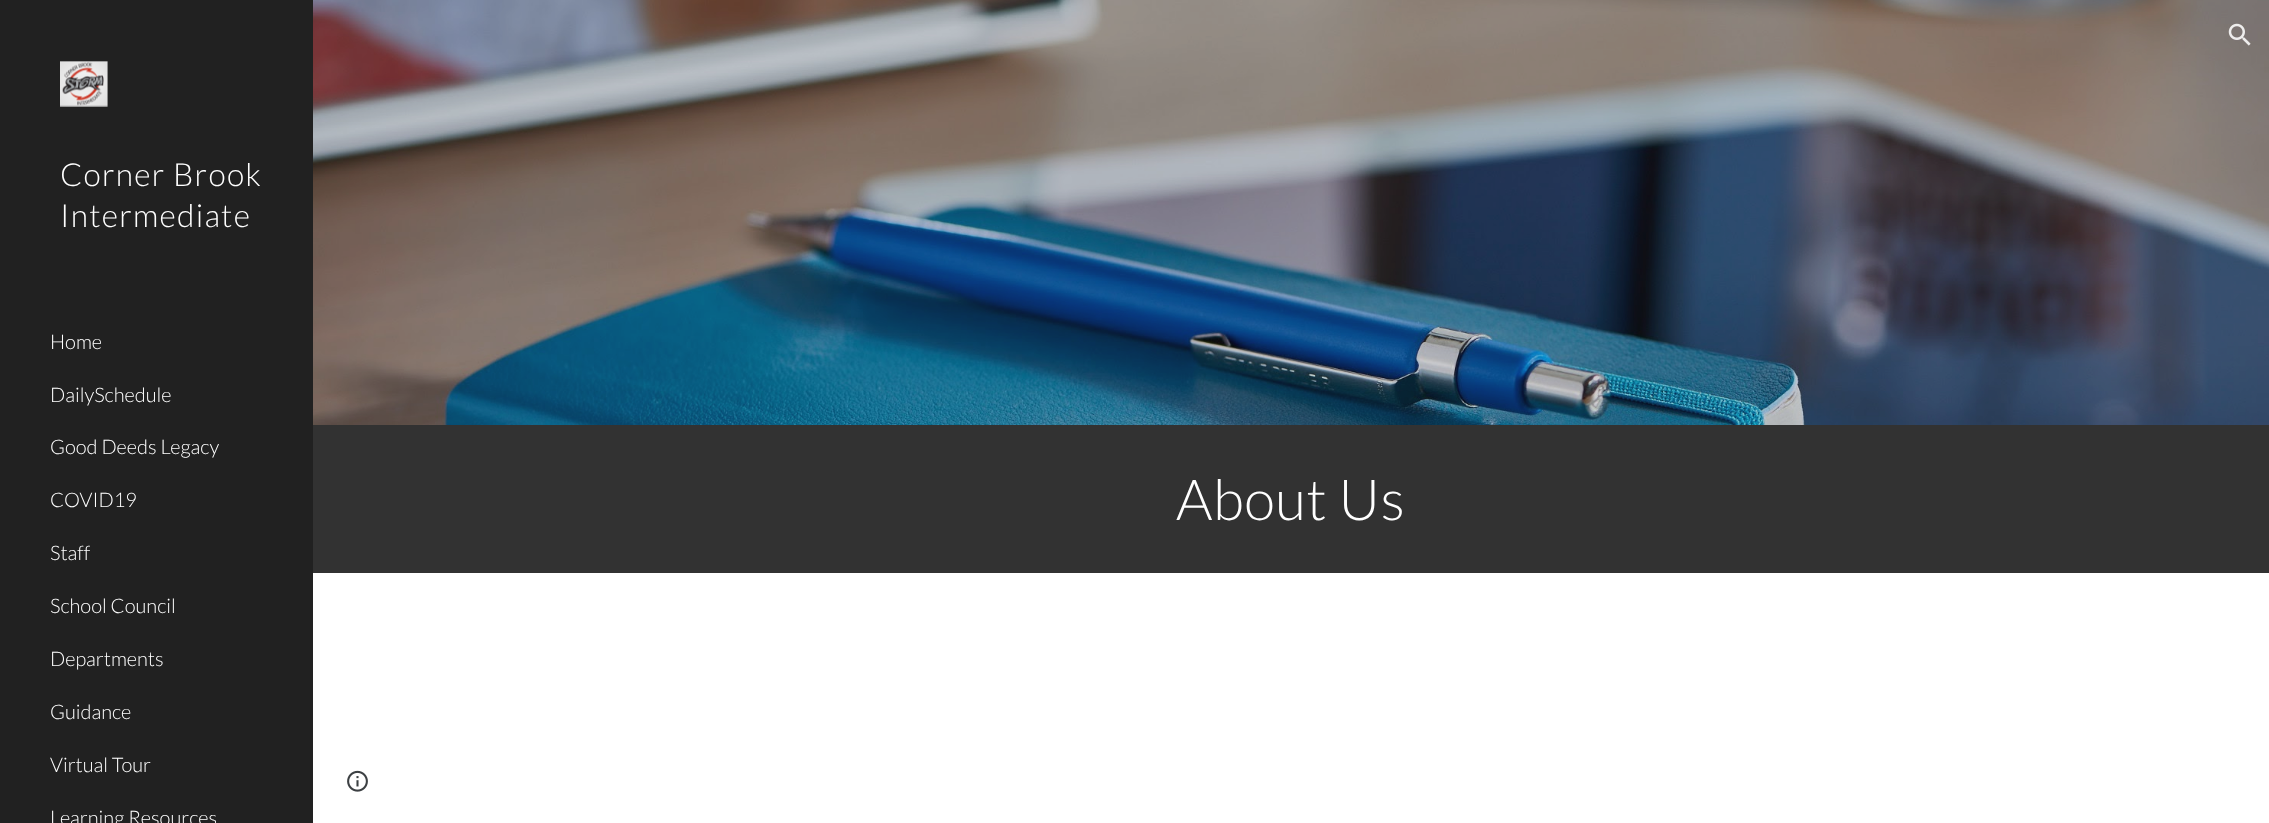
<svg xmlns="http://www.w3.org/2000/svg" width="2269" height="823">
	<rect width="100%" height="100%" fill="#FFFFFF" />
	<image x="313" y="0" width="1956" height="425" href="assets/img3.png" />
	<image x="2228" y="23" width="23" height="23" href="assets/img1.png" />
	<rect x="0" y="0" width="313" height="823" fill="#212121" />
	<image x="60" y="61" width="48" height="46" href="assets/img2.png" />
	<g font-family="Lato" font-size="31.75" font-weight="300" letter-spacing="1.25" fill="#FFFFFF">
		<text x="60" y="186">Corner Brook</text>
		<text x="60" y="227">Intermediate</text>
	</g>
	<g font-family="Lato" font-size="20" font-weight="300" fill="#FFFFFF">
		<text x="50" y="349">Home</text>
		<text x="50" y="402">DailySchedule</text>
		<text x="50" y="454">Good Deeds Legacy</text>
		<text x="50" y="507">COVID19</text>
		<text x="50" y="560">Staff</text>
		<text x="50" y="613">School Council</text>
		<text x="50" y="666">Departments</text>
		<text x="50" y="719">Guidance</text>
		<text x="50" y="772">Virtual Tour</text>
		<text x="50" y="825">Learning Resources</text>
	</g>
	<rect x="313" y="425" width="1956" height="148" fill="#323232" />
	<text x="1176" y="520" font-family="Lato" font-size="56.5" font-weight="300" letter-spacing="0.5" fill="#FFFFFF">About Us</text>
	<image x="347" y="770" width="21" height="22" href="assets/img4.png" />
</svg>
